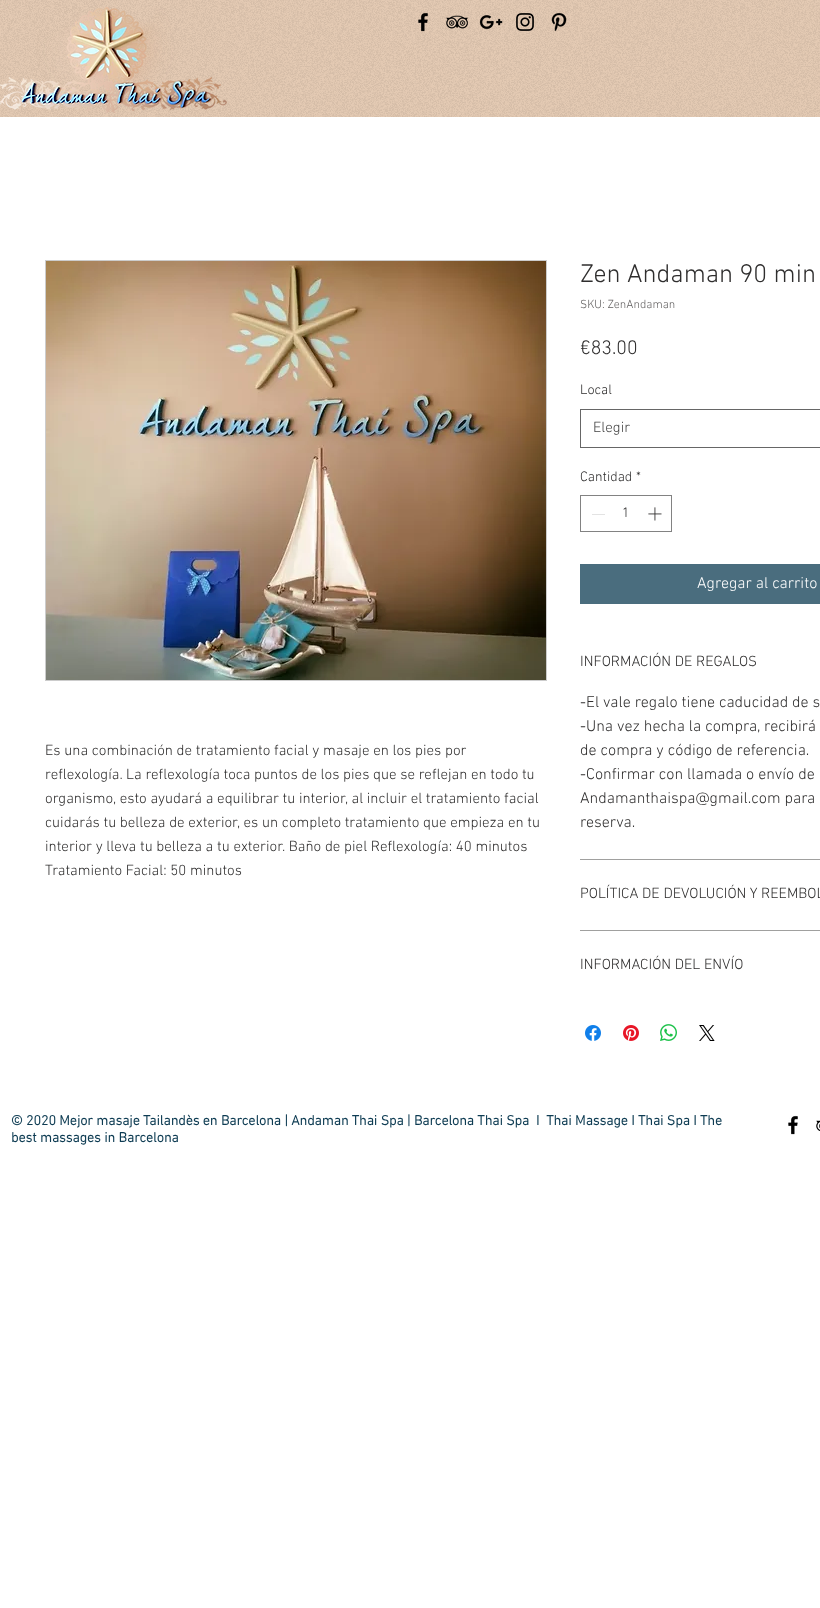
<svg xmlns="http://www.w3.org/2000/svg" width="820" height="1608">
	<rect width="100%" height="100%" fill="#FFFFFF" />
	<rect x="0" y="0" width="820" height="117" fill="#E4CAB3" />
	<image x="0" y="0" width="820" height="117" href="assets/img1.png" />
	<image x="0" y="7" width="227" height="106" href="assets/img2.png" />
	<image x="418" y="12" width="10" height="20" href="assets/img3.png" />
	<image x="446" y="15" width="22" height="14" href="assets/img4.png" />
	<image x="479" y="15" width="24" height="15" href="assets/img5.png" />
	<image x="516" y="13" width="18" height="18" href="assets/img6.png" />
	<image x="551" y="12" width="16" height="19" href="assets/img7.png" />
	<rect x="45.5" y="260.5" width="501" height="420" fill="none" stroke="#CCCCCC" />
	<image x="46" y="261" width="500" height="419" href="assets/img8.png" />
	<g font-family="'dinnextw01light'" font-size="15" font-weight="300" fill="#2F2E2E">
		<text x="45" y="755">Es una combinación de tratamiento facial y masaje en los pies por</text>
		<text x="45" y="779">reflexología. La reflexología toca puntos de los pies que se reflejan en todo tu</text>
		<text x="45" y="803">organismo, esto ayudará a equilibrar tu interior, al incluir el tratamiento facial</text>
		<text x="45" y="827">cuidarás tu belleza de exterior, es un completo tratamiento que empieza en tu</text>
		<text x="45" y="851">interior y lleva tu belleza a tu exterior. Baño de piel Reflexología: 40 minutos</text>
		<text x="45" y="875">Tratamiento Facial: 50 minutos</text>
	</g>
	<text x="580" y="282" font-family="'dinnextw01light'" font-size="26" font-weight="300" fill="#2F2E2E">Zen Andaman 90 min</text>
	<text x="580" y="308" font-family="'dinnextw01light'" font-size="12" font-weight="300" fill="#605E5E">SKU: ZenAndaman</text>
	<text x="580" y="354" font-family="'dinnextw01light'" font-size="20" font-weight="300" fill="#2F2E2E">€83.00</text>
	<text x="580" y="394" font-family="'dinnextw01light'" font-size="14" font-weight="300" fill="#2F2E2E">Local</text>
	<rect x="580.5" y="409.5" width="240" height="38" fill="none" stroke="#666666" />
	<text x="593" y="432" font-family="'dinnextw01light'" font-size="15" font-weight="300" fill="#444444">Elegir</text>
	<g font-family="'dinnextw01light'" font-size="14" font-weight="300" fill="#2F2E2E">
		<text x="580" y="481">Cantidad</text>
		<text x="636" y="481">*</text>
	</g>
	<rect x="580.5" y="495.5" width="91" height="36" fill="none" stroke="#828282" />
	<rect x="592" y="514" width="13" height="1" fill="#E3E3E3" />
	<text x="622" y="517" font-family="'dinnextw01light'" font-size="14" font-weight="300" fill="#2F2E2E">1</text>
	<image x="648" y="507" width="14" height="14" href="assets/img9.png" />
	<rect x="580" y="564" width="240" height="40" fill="#4A6D7E" />
	<text x="697" y="588" font-family="'dinnextw01light'" font-size="16" font-weight="300" fill="#FFFFFF">Agregar al carrito</text>
	<rect x="580" y="859" width="240" height="1" fill="#A0A09F" />
	<text x="580" y="666" font-family="'dinnextw01light'" font-size="15" font-weight="300" fill="#2F2E2E">INFORMACIÓN DE REGALOS</text>
	<g font-family="'dinnextw01light'" font-size="16" font-weight="300" fill="#2F2E2E">
		<text x="580" y="707">-El vale regalo tiene caducidad de s</text>
		<text x="580" y="731">-Una vez hecha la compra, recibirá</text>
		<text x="580" y="755">de compra y código de referencia.</text>
		<text x="580" y="779">-Confirmar con llamada o envío de</text>
		<text x="580" y="803">Andamanthaispa@gmail.com para</text>
		<text x="580" y="827">reserva.</text>
	</g>
	<rect x="580" y="930" width="240" height="1" fill="#A0A09F" />
	<g font-family="'dinnextw01light'" font-size="15" font-weight="300" fill="#2F2E2E">
		<text x="580" y="898">POLÍTICA DE DEVOLUCIÓN Y REEMBOL</text>
		<text x="580" y="969">INFORMACIÓN DEL ENVÍO</text>
	</g>
	<image x="585" y="1025" width="16" height="16" href="assets/img10.png" />
	<image x="623" y="1025" width="16" height="16" href="assets/img11.png" />
	<image x="660" y="1024" width="17" height="17" href="assets/img12.png" />
	<image x="699" y="1025" width="16" height="16" href="assets/img13.png" />
	<g font-family="'dinnextw01light'" font-size="14" font-weight="700" fill="#0E3C53">
		<text x="11" y="1125" xml:space="preserve">© 2020 Mejor masaje Tailandès en Barcelona | Andaman Thai Spa | Barcelona Thai Spa  I  Thai Massage I Thai Spa I The</text>
		<text x="11" y="1142">best massages in Barcelona</text>
	</g>
	<image x="788" y="1115" width="10" height="20" href="assets/img14.png" />
	<image x="816" y="1120" width="4" height="11" href="assets/img15.png" />
</svg>
